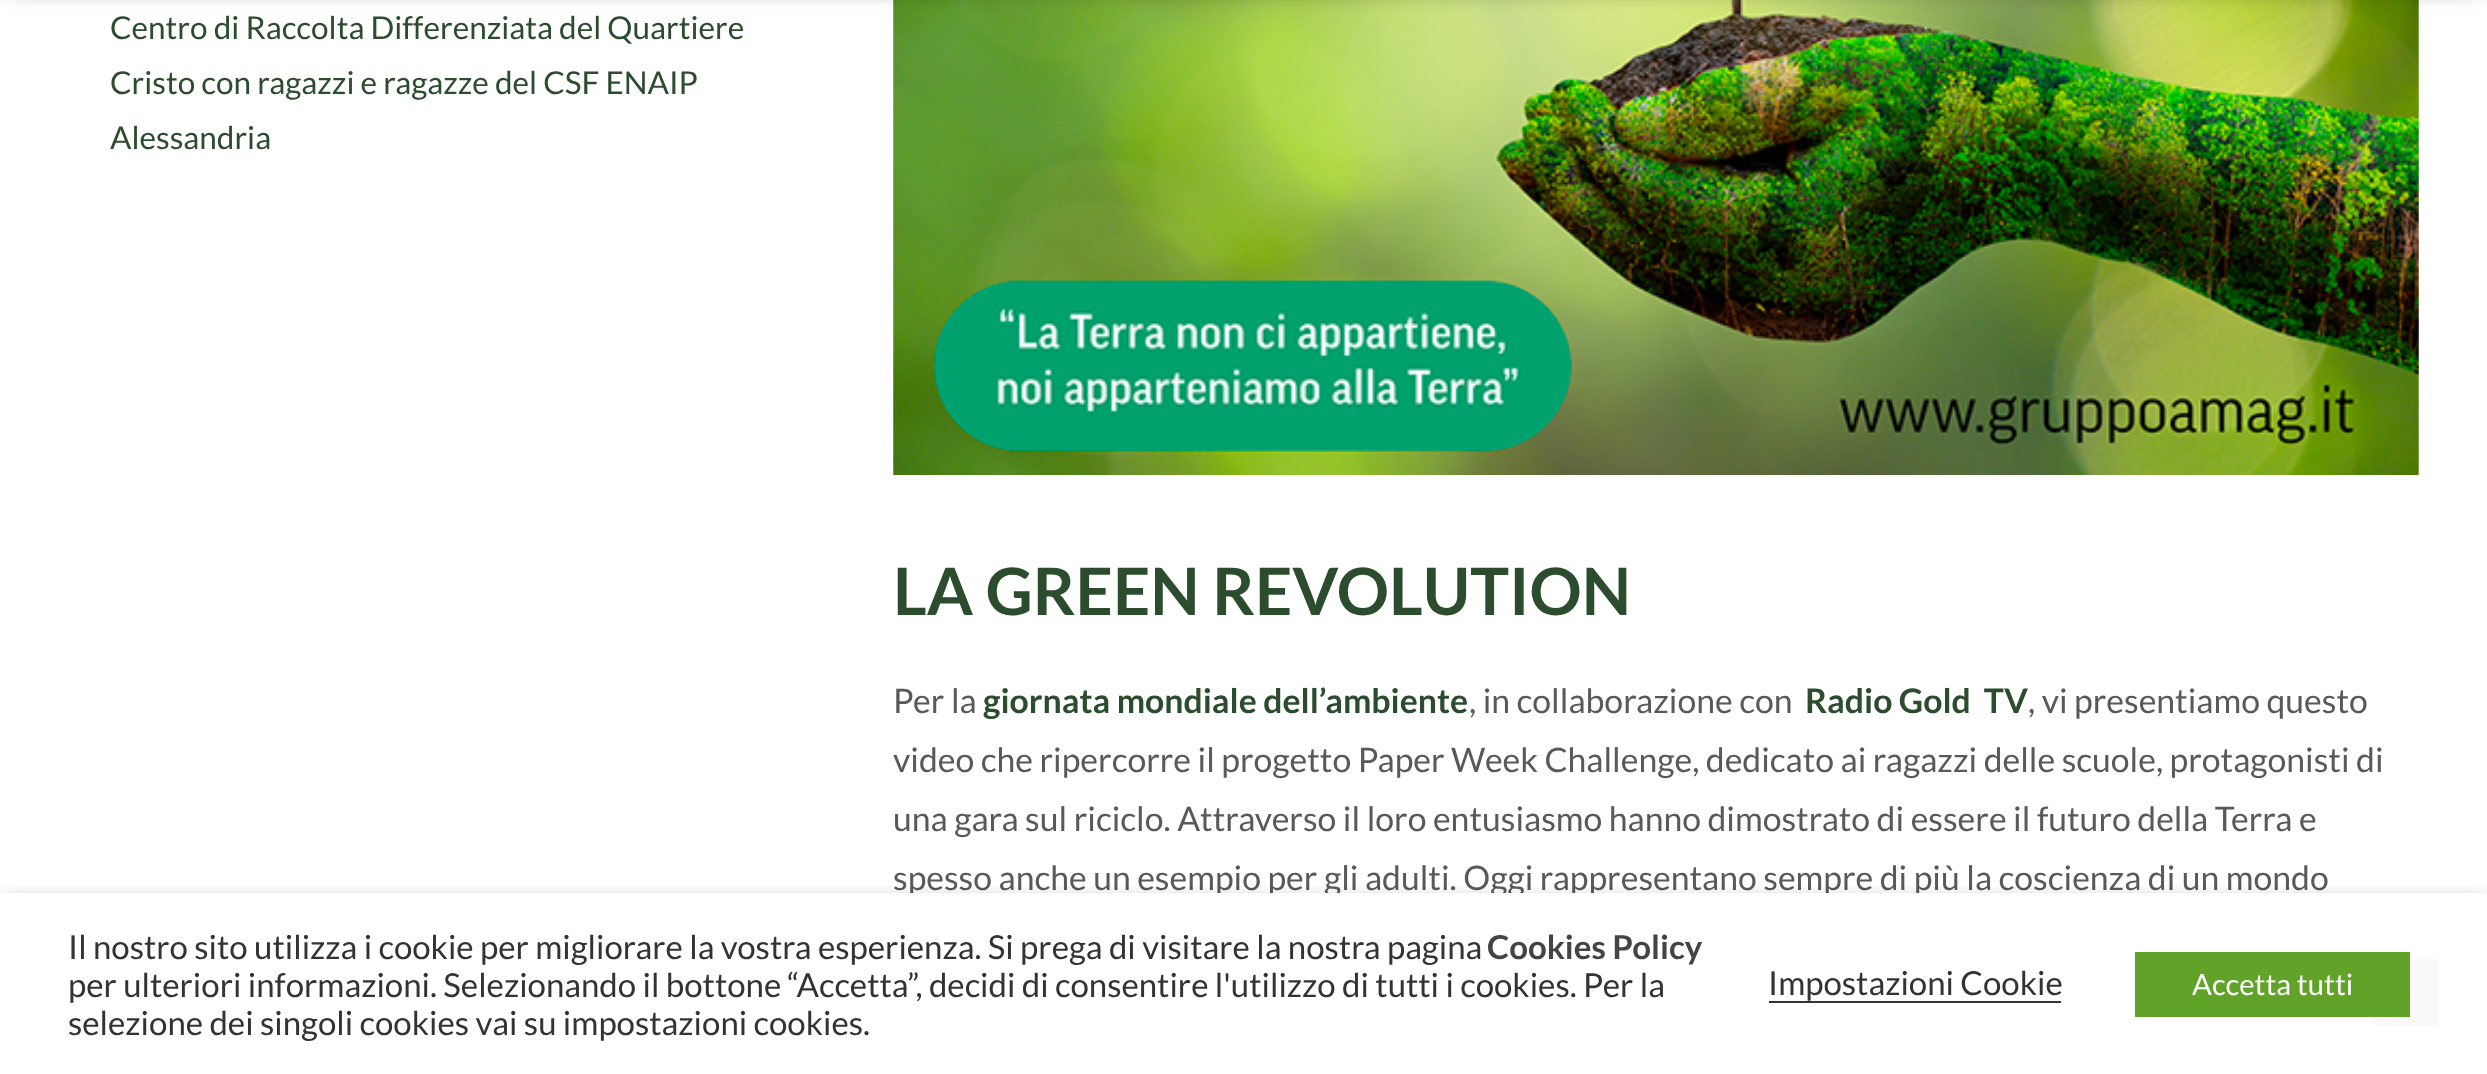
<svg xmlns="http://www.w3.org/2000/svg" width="2487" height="1074">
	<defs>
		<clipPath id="clip1"><rect x="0" y="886" width="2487" height="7" /></clipPath>
	</defs>
	<rect width="100%" height="100%" fill="#FFFFFF" />
	<image x="893" y="0" width="1526" height="475" href="assets/img1.png" />
	<rect x="11" y="-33" width="2466" height="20" fill="#000000" fill-opacity="0.6" filter="blur(11px)" />
	<g font-family="Lato" font-size="31.5" fill="#2C4C2E">
		<text x="110" y="39">Centro di Raccolta Differenziata del Quartiere</text>
		<text x="110" y="94">Cristo con ragazzi e ragazze del CSF ENAIP</text>
		<text x="110" y="149">Alessandria</text>
	</g>
	<text x="893" y="615" font-family="Lato" font-size="65.25" font-weight="700" fill="#2C4C2E">LA GREEN REVOLUTION</text>
	<text x="893" y="713" font-family="Lato" font-size="33.75" fill="#595959">Per la</text>
	<text x="983" y="713" font-family="Lato" font-size="33.75" font-weight="700" fill="#2C4C2E">giornata mondiale dell’ambiente</text>
	<text x="1469" y="713" font-family="Lato" font-size="33.75" fill="#595959">, in collaborazione con</text>
	<text x="1805" y="713" font-family="Lato" font-size="33.75" font-weight="700" fill="#2C4C2E" xml:space="preserve">Radio Gold  TV</text>
	<g font-family="Lato" font-size="33.75" fill="#595959">
		<text x="2028" y="713">, vi presentiamo questo</text>
		<text x="893" y="772">video che ripercorre il progetto Paper Week Challenge, dedicato ai ragazzi delle scuole, protagonisti di</text>
		<text x="893" y="831">una gara sul riciclo. Attraverso il loro entusiasmo hanno dimostrato di essere il futuro della Terra e</text>
		<text x="893" y="890">spesso anche un esempio per gli adulti. Oggi rappresentano sempre di più la coscienza di un mondo</text>
	</g>
	<rect x="2373" y="960" width="65" height="65" rx="4" fill="#2C4C2E" stroke="#2C4C2E" stroke-width="2" />
	<image x="2410" y="992" width="6" height="7" href="assets/img2.png" />
	<g clip-path="url(#clip1)">
		<rect x="0" y="905" width="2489" height="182" fill="#000000" fill-opacity="0.5" filter="blur(11px)" />
	</g>
	<rect x="2" y="893" width="2485" height="133" fill="#FFFFFF" fill-opacity="0.97" />
	<text x="68" y="959" font-family="Lato" font-size="33" fill="#333333">Il nostro sito utilizza i cookie per migliorare la vostra esperienza. Si prega di visitare la nostra pagina</text>
	<text x="1487" y="959" font-family="Lato" font-size="33" font-weight="700" fill="#444444">Cookies Policy</text>
	<g font-family="Lato" font-size="33" fill="#333333">
		<text x="68" y="997">per ulteriori informazioni. Selezionando il bottone “Accetta”, decidi di consentire l'utilizzo di tutti i cookies. Per la</text>
		<text x="68" y="1035">selezione dei singoli cookies vai su impostazioni cookies.</text>
		<text x="1768" y="995">Impostazioni Cookie</text>
	</g>
	<rect x="1769" y="1001" width="292" height="2" fill="#333333" />
	<rect x="2135" y="952" width="275" height="65" fill="#61A229" />
	<text x="2192" y="995" font-family="Lato" font-size="29.25" fill="#FFFFFF">Accetta tutti</text>
</svg>
